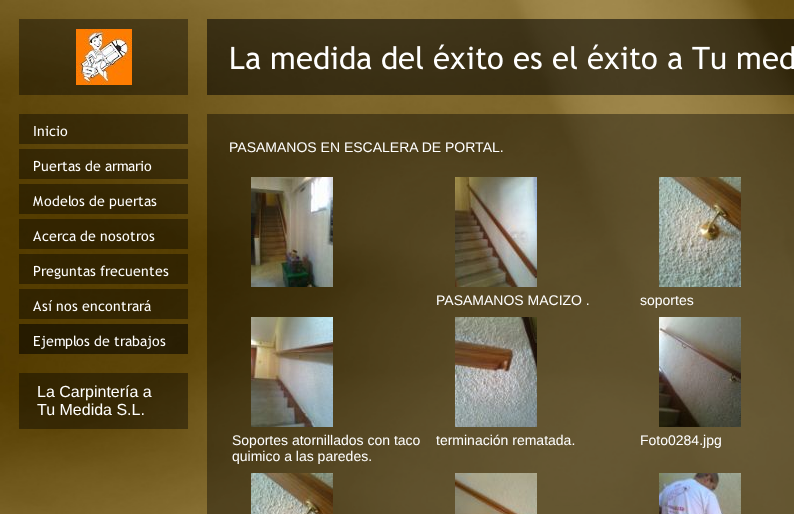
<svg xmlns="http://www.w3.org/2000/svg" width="794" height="514">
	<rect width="100%" height="100%" fill="#FFFFFF" />
	<image x="0" y="0" width="794" height="514" href="assets/img1.png" />
	<rect x="19" y="19" width="169" height="76" fill="#000000" fill-opacity="0.4" />
	<image x="76" y="29" width="56" height="56" href="assets/img2.png" />
	<rect x="207" y="19" width="587" height="76" fill="#000000" fill-opacity="0.55" />
	<image x="231" y="44" width="563" height="26" href="assets/img3.png" />
	<image x="19" y="114" width="169" height="30" href="assets/img4.png" />
	<image x="19" y="149" width="169" height="30" href="assets/img5.png" />
	<image x="19" y="184" width="169" height="30" href="assets/img6.png" />
	<image x="19" y="219" width="169" height="30" href="assets/img7.png" />
	<image x="19" y="254" width="169" height="30" href="assets/img8.png" />
	<image x="19" y="289" width="169" height="30" href="assets/img9.png" />
	<image x="19" y="324" width="169" height="30" href="assets/img10.png" />
	<rect x="19" y="373" width="169" height="56" fill="#000000" fill-opacity="0.4" />
	<g font-family="Liberation Sans" font-size="16" fill="#FFFFFF">
		<text x="37" y="397">La Carpintería a</text>
		<text x="37" y="415">Tu Medida S.L.</text>
	</g>
	<rect x="207" y="114" width="587" height="400" fill="#000000" fill-opacity="0.4" />
	<text x="229" y="152" font-family="Liberation Sans" font-size="14" fill="#FFFFFF">PASAMANOS EN ESCALERA DE PORTAL.</text>
	<image x="251" y="177" width="82" height="110" href="assets/img11.png" />
	<image x="455" y="177" width="82" height="110" href="assets/img12.png" />
	<text x="436" y="305" font-family="Liberation Sans" font-size="14" fill="#FFFFFF">PASAMANOS MACIZO .</text>
	<image x="659" y="177" width="82" height="110" href="assets/img13.png" />
	<text x="640" y="305" font-family="Liberation Sans" font-size="14" fill="#FFFFFF">soportes</text>
	<image x="251" y="317" width="82" height="110" href="assets/img14.png" />
	<g font-family="Liberation Sans" font-size="14" fill="#FFFFFF">
		<text x="232" y="445">Soportes atornillados con taco</text>
		<text x="232" y="461">quimico a las paredes.</text>
	</g>
	<image x="455" y="317" width="82" height="110" href="assets/img15.png" />
	<text x="436" y="445" font-family="Liberation Sans" font-size="14" fill="#FFFFFF">terminación rematada.</text>
	<image x="659" y="317" width="82" height="110" href="assets/img16.png" />
	<text x="640" y="445" font-family="Liberation Sans" font-size="14" fill="#FFFFFF">Foto0284.jpg</text>
	<image x="251" y="473" width="82" height="41" href="assets/img17.png" />
	<image x="455" y="473" width="82" height="41" href="assets/img18.png" />
	<image x="659" y="473" width="82" height="41" href="assets/img19.png" />
</svg>
